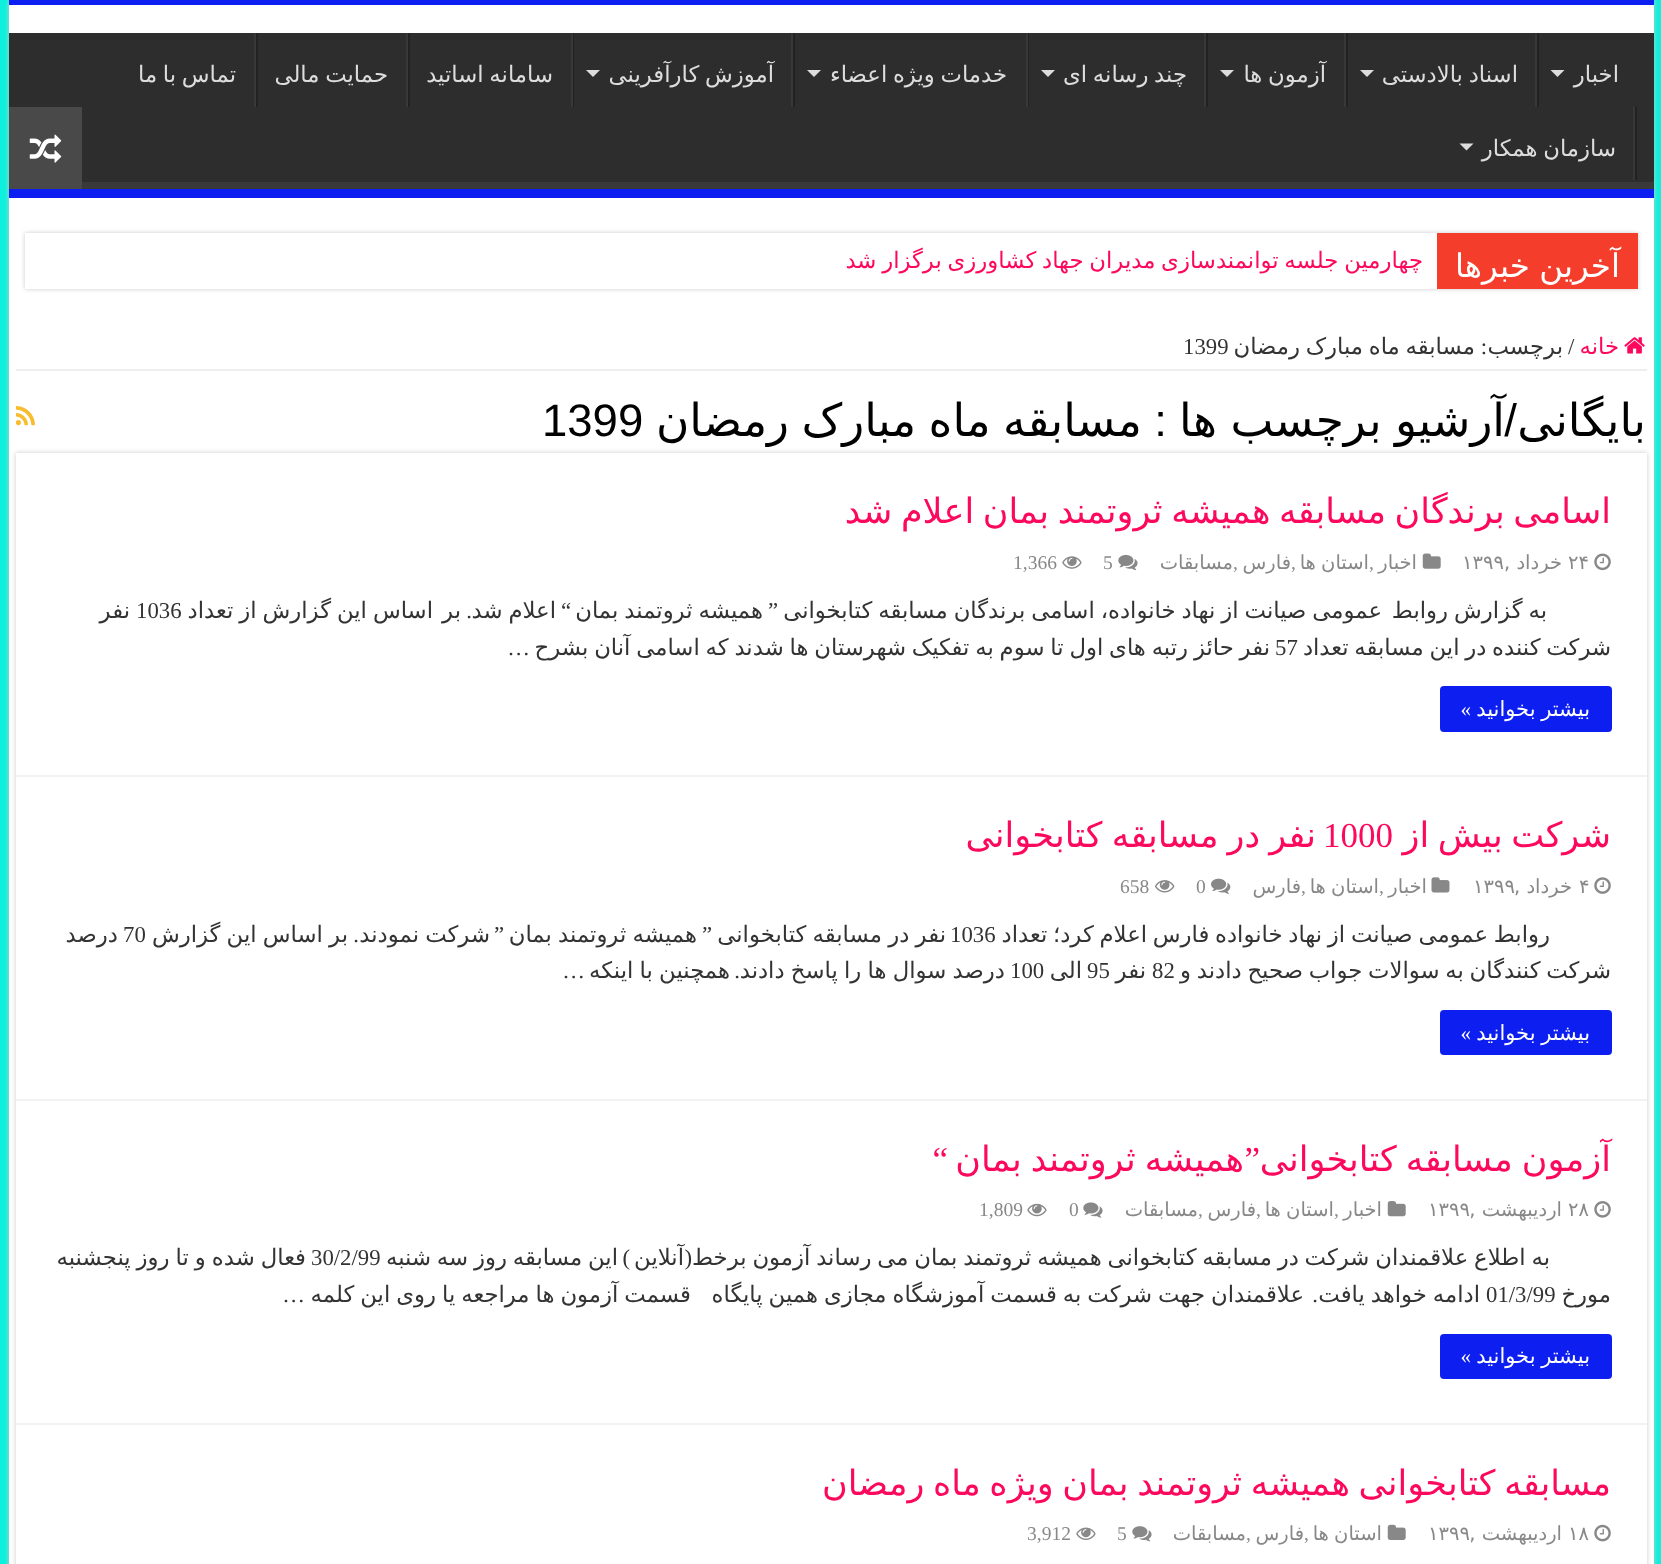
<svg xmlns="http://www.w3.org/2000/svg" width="1661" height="1564">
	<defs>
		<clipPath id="clip1"><rect x="9" y="33" width="1645" height="156" /></clipPath>
	</defs>
	<rect width="100%" height="100%" fill="#0CF0DD" />
	<rect x="9" y="0" width="1645" height="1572" fill="#CACACA" filter="blur(2.5px)" />
	<rect x="9" y="5" width="1645" height="1559" fill="#FFFFFF" />
	<rect x="9" y="0" width="1645" height="5" fill="#0C1FF0" />
	<rect x="9" y="33" width="1645" height="149" fill="#2D2D2D" />
	<g clip-path="url(#clip1)">
		<path d="M-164-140H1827V362H-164ZM7 23H1652C1653 23 1654 24 1654 24V180C1654 181 1653 182 1652 182H7C6 182 5 181 5 180V24C5 24 6 23 7 23Z" fill="#393939" fill-rule="evenodd" />
	</g>
	<rect x="9" y="189" width="1645" height="9" fill="#0C1FF0" />
	<text x="1619" y="82" font-family="DejaVu Sans" font-size="22.75" direction="rtl" fill="#DDDDDD">اخبار</text>
	<path d="M1550.5 70H1564.5L1557.5 77Z" fill="#DDDDDD" />
	<rect x="1537" y="33" width="2" height="74" fill="#222222" />
	<rect x="1535" y="33" width="2" height="74" fill="#383838" />
	<text x="1518" y="82" word-spacing="-1.5" font-family="DejaVu Sans" font-size="22.75" direction="rtl" fill="#DDDDDD">اسناد بالادستی</text>
	<path d="M1360 70H1374L1367 77Z" fill="#DDDDDD" />
	<rect x="1346" y="33" width="2" height="74" fill="#222222" />
	<rect x="1344" y="33" width="2" height="74" fill="#383838" />
	<text x="1326" y="82" word-spacing="-1.5" font-family="DejaVu Sans" font-size="22.75" direction="rtl" fill="#DDDDDD">آزمون ها</text>
	<path d="M1220 70H1234L1227 77Z" fill="#DDDDDD" />
	<rect x="1206" y="33" width="2" height="74" fill="#222222" />
	<rect x="1204" y="33" width="2" height="74" fill="#383838" />
	<text x="1187" y="82" word-spacing="-1.5" font-family="DejaVu Sans" font-size="22.75" direction="rtl" fill="#DDDDDD">چند رسانه ای</text>
	<path d="M1041 70H1055L1048 77Z" fill="#DDDDDD" />
	<rect x="1028" y="33" width="1" height="74" fill="#222222" />
	<rect x="1026" y="33" width="2" height="74" fill="#383838" />
	<text x="1007" y="82" word-spacing="-1.5" font-family="DejaVu Sans" font-size="22.75" direction="rtl" fill="#DDDDDD">خدمات ویژه اعضاء</text>
	<path d="M807 70H821L814 77Z" fill="#DDDDDD" />
	<rect x="793" y="33" width="2" height="74" fill="#222222" />
	<rect x="791" y="33" width="2" height="74" fill="#383838" />
	<text x="774" y="82" word-spacing="-1.5" font-family="DejaVu Sans" font-size="22.75" direction="rtl" fill="#DDDDDD">آموزش کارآفرینی</text>
	<path d="M586 70H600L593 77Z" fill="#DDDDDD" />
	<rect x="573" y="33" width="1" height="74" fill="#222222" />
	<rect x="571" y="33" width="2" height="74" fill="#383838" />
	<text x="553" y="82" word-spacing="-1.5" font-family="DejaVu Sans" font-size="22.75" direction="rtl" fill="#DDDDDD">سامانه اساتید</text>
	<rect x="408" y="33" width="2" height="74" fill="#222222" />
	<rect x="406" y="33" width="2" height="74" fill="#383838" />
	<text x="388" y="82" word-spacing="-1.5" font-family="DejaVu Sans" font-size="22.75" direction="rtl" fill="#DDDDDD">حمایت مالی</text>
	<rect x="256" y="33" width="2" height="74" fill="#222222" />
	<rect x="254" y="33" width="2" height="74" fill="#383838" />
	<text x="236" y="82" word-spacing="-1.5" font-family="DejaVu Sans" font-size="22.75" direction="rtl" fill="#DDDDDD">تماس با ما</text>
	<rect x="1635" y="107" width="2" height="73" fill="#222222" />
	<rect x="1633" y="107" width="2" height="73" fill="#383838" />
	<text x="1616" y="156" word-spacing="-1.5" font-family="DejaVu Sans" font-size="22.75" direction="rtl" fill="#DDDDDD">سازمان همکار</text>
	<path d="M1459.5 143.5H1473.5L1466.5 150.5Z" fill="#DDDDDD" />
	<rect x="9" y="107" width="73" height="82" fill="#494949" />
	<image x="29" y="134" width="33" height="29" href="assets/img1.png" />
	<rect x="25" y="233" width="1613" height="56" fill="#CACACA" filter="blur(2px)" />
	<rect x="25" y="233" width="1412" height="56" fill="#FFFFFF" />
	<rect x="1437" y="233" width="201" height="56" fill="#F43D2A" />
	<text x="1620" y="277" word-spacing="-1" font-family="DejaVu Sans" font-size="32.5" direction="rtl" fill="#FFFFFF">آخرین خبرها</text>
	<text x="1423" y="268" word-spacing="-1.5" font-family="DejaVu Sans" font-size="22.75" direction="rtl" fill="#FC085D">چهارمین جلسه توانمندسازی مدیران جهاد کشاورزی برگزار شد</text>
	<rect x="16" y="369" width="1631" height="2" fill="#EEEEEE" />
	<image x="1624" y="337" width="21" height="17" href="assets/img2.png" />
	<text x="1619" y="354" font-family="DejaVu Sans" font-size="22.75" direction="rtl" fill="#FC085D">خانه</text>
	<text x="1568" y="354" font-family="Liberation Serif" font-size="22.75" fill="#333333">/</text>
	<text x="1563" y="354" font-family="DejaVu Sans" font-size="22.75" direction="rtl" fill="#333333">برچسب</text>
	<text x="1487" y="354" font-family="Liberation Serif" font-size="22.75" direction="rtl" fill="#333333">:</text>
	<text x="1475" y="354" word-spacing="-1.5" font-family="DejaVu Sans" font-size="22.75" direction="rtl" fill="#333333">مسابقه ماه مبارک رمضان</text>
	<text x="1183" y="354" font-family="Liberation Serif" font-size="22.75" fill="#333333">1399</text>
	<text x="1646" y="436" font-family="DejaVu Sans" font-size="45.5" direction="rtl" fill="#000000">بایگانی</text>
	<rect x="16" y="453" width="1631" height="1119" fill="#CACACA" filter="blur(2.5px)" />
	<text x="1505" y="436" word-spacing="-1" font-family="DejaVu Sans" font-size="45.5" direction="rtl" fill="#000000">آرشیو برچسب ها</text>
	<g font-family="Liberation Sans" font-size="45.5" direction="rtl" fill="#000000">
		<text x="1517" y="436">/</text>
		<text x="1167" y="436">:</text>
	</g>
	<text x="1142" y="436" word-spacing="-2" font-family="DejaVu Sans" font-size="45.5" direction="rtl" fill="#000000">مسابقه ماه مبارک رمضان</text>
	<text x="542" y="436" font-family="Liberation Sans" font-size="45.5" fill="#000000">1399</text>
	<image x="16" y="406" width="19" height="20" href="assets/img3.png" />
	<rect x="16" y="453" width="1631" height="1111" fill="#FFFFFF" />
	<rect x="16" y="775" width="1631" height="2" fill="#F2F2F2" />
	<text x="1611" y="523" word-spacing="-2.5" font-family="DejaVu Sans" font-size="35" direction="rtl" fill="#FC085D">اسامی برندگان مسابقه همیشه ثروتمند بمان اعلام شد</text>
	<image x="1594" y="553" width="17" height="18" href="assets/img4.png" />
	<text x="1568" y="569" font-family="DejaVu Sans" font-size="19.5" fill="#888888">۲۴</text>
	<text x="1562" y="569" font-family="DejaVu Sans" font-size="19.5" direction="rtl" fill="#888888">خرداد ,</text>
	<text x="1462" y="569" font-family="DejaVu Sans" font-size="19.5" fill="#888888">۱۳۹۹</text>
	<image x="1422" y="553" width="19" height="16" href="assets/img5.png" />
	<text x="1417" y="569" font-family="DejaVu Sans" font-size="19.5" direction="rtl" fill="#888888">اخبار</text>
	<text x="1369" y="569" font-family="Liberation Serif" font-size="19.5" fill="#888888">,</text>
	<text x="1369" y="569" word-spacing="-1" font-family="DejaVu Sans" font-size="19.5" direction="rtl" fill="#888888">استان ها</text>
	<text x="1291" y="569" font-family="Liberation Serif" font-size="19.5" fill="#888888">,</text>
	<text x="1291" y="569" font-family="DejaVu Sans" font-size="19.5" direction="rtl" fill="#888888">فارس</text>
	<text x="1233" y="569" font-family="Liberation Serif" font-size="19.5" fill="#888888">,</text>
	<text x="1233" y="569" font-family="DejaVu Sans" font-size="19.5" direction="rtl" fill="#888888">مسابقات</text>
	<image x="1118" y="554" width="20" height="17" href="assets/img6.png" />
	<text x="1103" y="569" font-family="Liberation Serif" font-size="19.5" fill="#888888">5</text>
	<image x="1062" y="556" width="20" height="13" href="assets/img7.png" />
	<text x="1013" y="569" font-family="Liberation Serif" font-size="19.5" fill="#888888">1,366</text>
	<g font-family="DejaVu Sans" font-size="22.75" direction="rtl" fill="#333333">
		<text x="1547" y="618" word-spacing="-1.25">به گزارش روابط</text>
		<text x="1382" y="618" word-spacing="-1.25">عمومی صیانت از نهاد خانواده، اسامی برندگان مسابقه کتابخوانی</text>
	</g>
	<text x="778" y="618" font-family="Liberation Serif" font-size="22.75" direction="rtl" fill="#333333">”</text>
	<text x="763" y="618" word-spacing="-1.25" font-family="DejaVu Sans" font-size="22.75" direction="rtl" fill="#333333">همیشه ثروتمند بمان</text>
	<text x="571" y="618" font-family="Liberation Serif" font-size="22.75" direction="rtl" fill="#333333">“</text>
	<text x="556" y="618" word-spacing="-1.25" font-family="DejaVu Sans" font-size="22.75" direction="rtl" fill="#333333">اعلام شد</text>
	<text x="472" y="618" font-family="Liberation Serif" font-size="22.75" direction="rtl" fill="#333333">.</text>
	<g font-family="DejaVu Sans" font-size="22.75" direction="rtl" fill="#333333">
		<text x="461" y="618">بر</text>
		<text x="433" y="618" word-spacing="-1.25">اساس این گزارش از تعداد</text>
	</g>
	<text x="136" y="618" font-family="Liberation Serif" font-size="22.75" fill="#333333">1036</text>
	<g font-family="DejaVu Sans" font-size="22.75" direction="rtl" fill="#333333">
		<text x="130" y="618">نفر</text>
		<text x="1611" y="655" word-spacing="-1.5">شرکت کننده در این مسابقه تعداد</text>
		<text x="1270" y="655" word-spacing="-1.4">نفر حائز رتبه های اول تا سوم به تفکیک شهرستان ها شدند که اسامی آنان بشرح</text>
	</g>
	<text x="1275" y="655" font-family="Liberation Serif" font-size="22.75" fill="#333333">57</text>
	<text x="530" y="655" font-family="Liberation Serif" font-size="22.75" direction="rtl" fill="#333333">…</text>
	<rect x="1440" y="686" width="172" height="46" rx="4" fill="#0C1FF0" />
	<text x="1590" y="716" word-spacing="-1" font-family="DejaVu Sans" font-size="21" direction="rtl" fill="#FFFFFF">بیشتر بخوانید</text>
	<text x="1471" y="716" font-family="Liberation Serif" font-size="21" direction="rtl" fill="#FFFFFF">»</text>
	<rect x="16" y="1099" width="1631" height="2" fill="#F2F2F2" />
	<text x="1611" y="847" word-spacing="-2.5" font-family="DejaVu Sans" font-size="35" direction="rtl" fill="#FC085D">شرکت بیش از</text>
	<text x="1323" y="847" font-family="Liberation Serif" font-size="35" fill="#FC085D">1000</text>
	<text x="1316" y="847" word-spacing="-2" font-family="DejaVu Sans" font-size="35" direction="rtl" fill="#FC085D">نفر در مسابقه کتابخوانی</text>
	<image x="1594" y="877" width="17" height="17" href="assets/img8.png" />
	<text x="1579" y="893" font-family="DejaVu Sans" font-size="19.5" fill="#888888">۴</text>
	<text x="1572" y="893" font-family="DejaVu Sans" font-size="19.5" direction="rtl" fill="#888888">خرداد ,</text>
	<text x="1473" y="893" font-family="DejaVu Sans" font-size="19.5" fill="#888888">۱۳۹۹</text>
	<image x="1431" y="877" width="19" height="16" href="assets/img9.png" />
	<text x="1427" y="893" font-family="DejaVu Sans" font-size="19.5" direction="rtl" fill="#888888">اخبار</text>
	<text x="1379" y="893" font-family="Liberation Serif" font-size="19.5" fill="#888888">,</text>
	<text x="1379" y="893" word-spacing="-1" font-family="DejaVu Sans" font-size="19.5" direction="rtl" fill="#888888">استان ها</text>
	<text x="1301" y="893" font-family="Liberation Serif" font-size="19.5" fill="#888888">,</text>
	<text x="1301" y="893" font-family="DejaVu Sans" font-size="19.5" direction="rtl" fill="#888888">فارس</text>
	<image x="1211" y="878" width="20" height="16" href="assets/img10.png" />
	<text x="1196" y="893" font-family="Liberation Serif" font-size="19.5" fill="#888888">0</text>
	<image x="1155" y="880" width="20" height="13" href="assets/img11.png" />
	<text x="1120" y="893" font-family="Liberation Serif" font-size="19.5" fill="#888888">658</text>
	<text x="1550" y="942" word-spacing="-1.5" font-family="DejaVu Sans" font-size="22.75" direction="rtl" fill="#333333">روابط عمومی صیانت از نهاد خانواده فارس اعلام کرد؛ تعداد</text>
	<text x="950" y="942" font-family="Liberation Serif" font-size="22.75" fill="#333333">1036</text>
	<text x="946" y="942" word-spacing="-1" font-family="DejaVu Sans" font-size="22.75" direction="rtl" fill="#333333">نفر در مسابقه کتابخوانی</text>
	<text x="712" y="942" font-family="Liberation Serif" font-size="22.75" direction="rtl" fill="#333333">”</text>
	<text x="697" y="942" word-spacing="-1" font-family="DejaVu Sans" font-size="22.75" direction="rtl" fill="#333333">همیشه ثروتمند بمان</text>
	<text x="504" y="942" font-family="Liberation Serif" font-size="22.75" direction="rtl" fill="#333333">”</text>
	<text x="490" y="942" word-spacing="-1" font-family="DejaVu Sans" font-size="22.75" direction="rtl" fill="#333333">شرکت نمودند</text>
	<text x="359" y="942" font-family="Liberation Serif" font-size="22.75" direction="rtl" fill="#333333">.</text>
	<text x="348" y="942" word-spacing="-1" font-family="DejaVu Sans" font-size="22.75" direction="rtl" fill="#333333">بر اساس این گزارش</text>
	<text x="123" y="942" font-family="Liberation Serif" font-size="22.75" fill="#333333">70</text>
	<g font-family="DejaVu Sans" font-size="22.75" direction="rtl" fill="#333333">
		<text x="118" y="942">درصد</text>
		<text x="1611" y="978" word-spacing="-1.5">شرکت کنندگان به سوالات جواب صحیح دادند و</text>
	</g>
	<text x="1152" y="978" font-family="Liberation Serif" font-size="22.75" fill="#333333">82</text>
	<text x="1146" y="978" font-family="DejaVu Sans" font-size="22.75" direction="rtl" fill="#333333">نفر</text>
	<text x="1087" y="978" font-family="Liberation Serif" font-size="22.75" fill="#333333">95</text>
	<text x="1082" y="978" font-family="DejaVu Sans" font-size="22.75" direction="rtl" fill="#333333">الی</text>
	<text x="1010" y="978" font-family="Liberation Serif" font-size="22.75" fill="#333333">100</text>
	<text x="1005" y="978" word-spacing="-1" font-family="DejaVu Sans" font-size="22.75" direction="rtl" fill="#333333">درصد سوال ها را پاسخ دادند</text>
	<text x="740" y="978" font-family="Liberation Serif" font-size="22.75" direction="rtl" fill="#333333">.</text>
	<text x="730" y="978" word-spacing="-1" font-family="DejaVu Sans" font-size="22.75" direction="rtl" fill="#333333">همچنین با اینکه</text>
	<text x="585" y="978" font-family="Liberation Serif" font-size="22.75" direction="rtl" fill="#333333">…</text>
	<rect x="1440" y="1010" width="172" height="45" rx="4" fill="#0C1FF0" />
	<text x="1590" y="1040" word-spacing="-1" font-family="DejaVu Sans" font-size="21" direction="rtl" fill="#FFFFFF">بیشتر بخوانید</text>
	<text x="1471" y="1040" font-family="Liberation Serif" font-size="21" direction="rtl" fill="#FFFFFF">»</text>
	<rect x="16" y="1423" width="1631" height="2" fill="#F2F2F2" />
	<g font-family="DejaVu Sans" font-size="35" direction="rtl" fill="#FC085D">
		<text x="1611" y="1171" word-spacing="-2">آزمون مسابقه کتابخوانی</text>
		<text x="1244" y="1171" word-spacing="-2">همیشه ثروتمند بمان</text>
	</g>
	<g font-family="Liberation Serif" font-size="35" direction="rtl" fill="#FC085D">
		<text x="1260" y="1171">”</text>
		<text x="948" y="1171">“</text>
	</g>
	<image x="1594" y="1201" width="17" height="17" href="assets/img12.png" />
	<text x="1568" y="1216" font-family="DejaVu Sans" font-size="19.5" fill="#888888">۲۸</text>
	<text x="1562" y="1216" font-family="DejaVu Sans" font-size="19.5" direction="rtl" fill="#888888">اردیبهشت ,</text>
	<text x="1428" y="1216" font-family="DejaVu Sans" font-size="19.5" fill="#888888">۱۳۹۹</text>
	<image x="1387" y="1201" width="19" height="16" href="assets/img13.png" />
	<text x="1382" y="1216" font-family="DejaVu Sans" font-size="19.5" direction="rtl" fill="#888888">اخبار</text>
	<text x="1334" y="1216" font-family="Liberation Serif" font-size="19.5" fill="#888888">,</text>
	<text x="1334" y="1216" word-spacing="-1" font-family="DejaVu Sans" font-size="19.5" direction="rtl" fill="#888888">استان ها</text>
	<text x="1256" y="1216" font-family="Liberation Serif" font-size="19.5" fill="#888888">,</text>
	<text x="1256" y="1216" font-family="DejaVu Sans" font-size="19.5" direction="rtl" fill="#888888">فارس</text>
	<text x="1198" y="1216" font-family="Liberation Serif" font-size="19.5" fill="#888888">,</text>
	<text x="1198" y="1216" font-family="DejaVu Sans" font-size="19.5" direction="rtl" fill="#888888">مسابقات</text>
	<image x="1083" y="1202" width="20" height="16" href="assets/img14.png" />
	<text x="1069" y="1216" font-family="Liberation Serif" font-size="19.5" fill="#888888">0</text>
	<image x="1027" y="1203" width="20" height="14" href="assets/img15.png" />
	<text x="979" y="1216" font-family="Liberation Serif" font-size="19.5" fill="#888888">1,809</text>
	<text x="1550" y="1265" word-spacing="-1.4" font-family="DejaVu Sans" font-size="22.75" direction="rtl" fill="#333333">به اطلاع علاقمندان شرکت در مسابقه کتابخوانی همیشه ثروتمند بمان می رساند آزمون برخط</text>
	<text x="692" y="1265" font-family="Liberation Serif" font-size="22.75" direction="rtl" fill="#333333">(</text>
	<text x="684" y="1265" font-family="DejaVu Sans" font-size="22.75" direction="rtl" fill="#333333">آنلاین</text>
	<text x="630" y="1265" font-family="Liberation Serif" font-size="22.75" direction="rtl" fill="#333333">)</text>
	<text x="618" y="1265" word-spacing="-1.4" font-family="DejaVu Sans" font-size="22.75" direction="rtl" fill="#333333">این مسابقه روز سه شنبه</text>
	<text x="311" y="1265" font-family="Liberation Serif" font-size="22.75" fill="#333333">30/2/99</text>
	<g font-family="DejaVu Sans" font-size="22.75" direction="rtl" fill="#333333">
		<text x="306" y="1265" word-spacing="-1.25">فعال شده و تا روز پنجشنبه</text>
		<text x="1611" y="1302">مورخ</text>
	</g>
	<text x="1486" y="1302" font-family="Liberation Serif" font-size="22.75" fill="#333333">01/3/99</text>
	<text x="1480" y="1302" word-spacing="-1.25" font-family="DejaVu Sans" font-size="22.75" direction="rtl" fill="#333333">ادامه خواهد یافت</text>
	<text x="1318" y="1302" font-family="Liberation Serif" font-size="22.75" direction="rtl" fill="#333333">.</text>
	<g font-family="DejaVu Sans" font-size="22.75" direction="rtl" fill="#333333">
		<text x="1304" y="1302" word-spacing="-1.25">علاقمندان جهت شرکت به قسمت آموزشگاه مجازی همین پایگاه</text>
		<text x="691" y="1302" word-spacing="-1.25">قسمت آزمون ها مراجعه یا روی این کلمه</text>
	</g>
	<text x="305" y="1302" font-family="Liberation Serif" font-size="22.75" direction="rtl" fill="#333333">…</text>
	<rect x="1440" y="1334" width="172" height="45" rx="4" fill="#0C1FF0" />
	<text x="1590" y="1363" word-spacing="-1" font-family="DejaVu Sans" font-size="21" direction="rtl" fill="#FFFFFF">بیشتر بخوانید</text>
	<text x="1471" y="1363" font-family="Liberation Serif" font-size="21" direction="rtl" fill="#FFFFFF">»</text>
	<text x="1611" y="1495" word-spacing="-2.5" font-family="DejaVu Sans" font-size="35" direction="rtl" fill="#FC085D">مسابقه کتابخوانی همیشه ثروتمند بمان ویژه ماه رمضان</text>
	<image x="1594" y="1524" width="17" height="18" href="assets/img16.png" />
	<text x="1568" y="1540" font-family="DejaVu Sans" font-size="19.5" fill="#888888">۱۸</text>
	<text x="1562" y="1540" font-family="DejaVu Sans" font-size="19.5" direction="rtl" fill="#888888">اردیبهشت ,</text>
	<text x="1428" y="1540" font-family="DejaVu Sans" font-size="19.5" fill="#888888">۱۳۹۹</text>
	<image x="1387" y="1524" width="19" height="16" href="assets/img17.png" />
	<text x="1382" y="1540" word-spacing="-1" font-family="DejaVu Sans" font-size="19.5" direction="rtl" fill="#888888">استان ها</text>
	<text x="1304" y="1540" font-family="Liberation Serif" font-size="19.5" fill="#888888">,</text>
	<text x="1304" y="1540" font-family="DejaVu Sans" font-size="19.5" direction="rtl" fill="#888888">فارس</text>
	<text x="1246" y="1540" font-family="Liberation Serif" font-size="19.5" fill="#888888">,</text>
	<text x="1246" y="1540" font-family="DejaVu Sans" font-size="19.5" direction="rtl" fill="#888888">مسابقات</text>
	<image x="1132" y="1526" width="20" height="16" href="assets/img18.png" />
	<text x="1117" y="1540" font-family="Liberation Serif" font-size="19.5" fill="#888888">5</text>
	<image x="1076" y="1527" width="20" height="13" href="assets/img19.png" />
	<text x="1027" y="1540" font-family="Liberation Serif" font-size="19.5" fill="#888888">3,912</text>
</svg>
